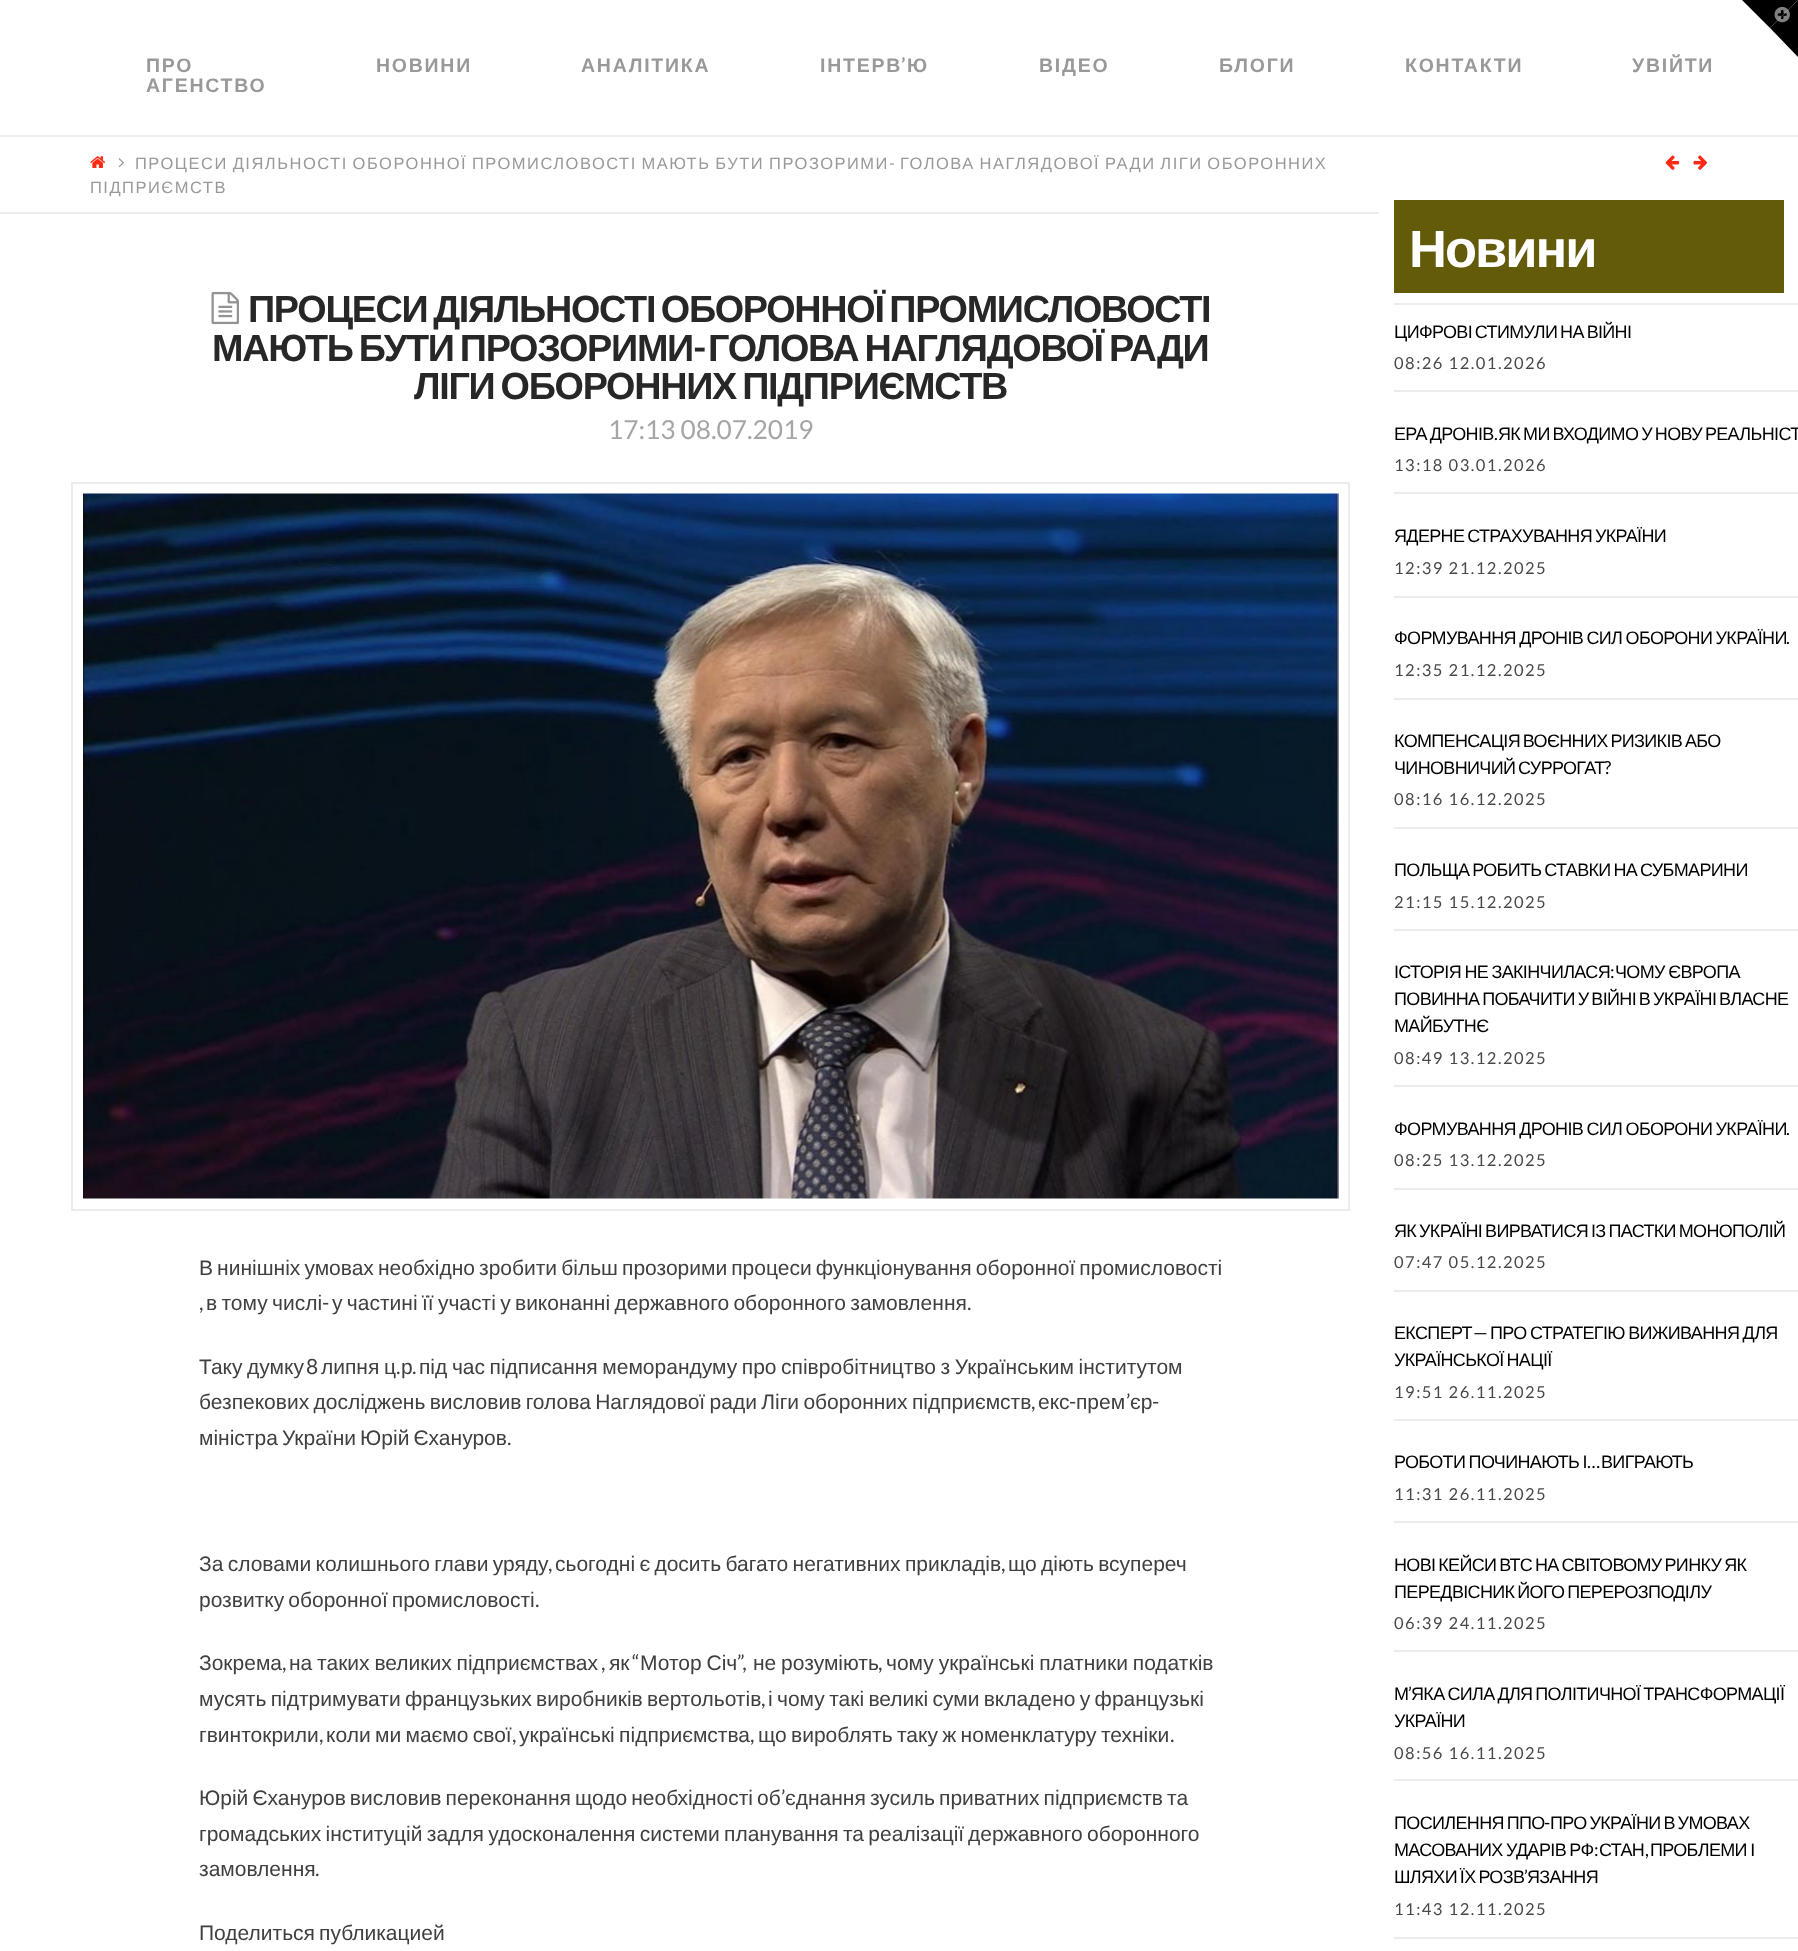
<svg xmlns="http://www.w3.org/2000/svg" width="1798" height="1951">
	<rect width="100%" height="100%" fill="#FFFFFF" />
	<path d="M1742 0H1798L1770 28Z" fill="#000000" />
	<path d="M1798 0V57L1770 28Z" fill="#000000" />
	<image x="1774" y="6" width="16" height="17" href="assets/img1.png" />
	<rect x="0" y="135" width="1798" height="2" fill="#ECECEC" />
	<g font-family="Liberation Sans" font-size="19.5" font-weight="700" letter-spacing="1.75" fill="#999999">
		<text x="146" y="72">ПРО</text>
		<text x="146" y="92">АГЕНСТВО</text>
		<text x="376" y="72">НОВИНИ</text>
		<text x="581" y="72">АНАЛІТИКА</text>
		<text x="820" y="72">ІНТЕРВ</text>
	</g>
	<text x="901" y="72" font-family="Lato" font-size="19.5" font-weight="700" letter-spacing="1.75" fill="#999999">’</text>
	<g font-family="Liberation Sans" font-size="19.5" font-weight="700" letter-spacing="1.75" fill="#999999">
		<text x="907" y="72">Ю</text>
		<text x="1039" y="72">ВІДЕО</text>
		<text x="1219" y="72">БЛОГИ</text>
		<text x="1405" y="72">КОНТАКТИ</text>
		<text x="1632" y="72">УВІЙТИ</text>
	</g>
	<rect x="0" y="212" width="1379" height="2" fill="#ECECEC" />
	<image x="90" y="156" width="15" height="12" href="assets/img2.png" />
	<image x="118" y="158" width="6" height="10" href="assets/img3.png" />
	<text x="135" y="169" word-spacing="-1.25" font-family="Liberation Sans" font-size="16.5" letter-spacing="1.5" fill="#999999">ПРОЦЕСИ ДІЯЛЬНОСТІ ОБОРОННОЇ ПРОМИСЛОВОСТІ МАЮТЬ БУТИ ПРОЗОРИМИ</text>
	<text x="889" y="169" font-family="Lato" font-size="16.5" letter-spacing="1.5" fill="#999999">-</text>
	<g font-family="Liberation Sans" font-size="16.5" letter-spacing="1.5" fill="#999999">
		<text x="900" y="169" word-spacing="-1.25">ГОЛОВА НАГЛЯДОВОЇ РАДИ ЛІГИ ОБОРОННИХ</text>
		<text x="90" y="193">ПІДПРИЄМСТВ</text>
	</g>
	<image x="1665" y="155" width="15" height="15" href="assets/img4.png" />
	<image x="1693" y="155" width="14" height="15" href="assets/img5.png" />
	<image x="211" y="291" width="28" height="34" href="assets/img6.png" />
	<g font-family="Liberation Sans" font-size="37.8" font-weight="700" letter-spacing="-1.3" fill="#272727">
		<text x="248" y="322" word-spacing="-3.5">ПРОЦЕСИ ДІЯЛЬНОСТІ ОБОРОННОЇ ПРОМИСЛОВОСТІ</text>
		<text x="212" y="361" word-spacing="-3">МАЮТЬ БУТИ ПРОЗОРИМИ</text>
	</g>
	<text x="693" y="361" font-family="Lato" font-size="37.8" font-weight="700" letter-spacing="-1.3" fill="#272727">-</text>
	<g font-family="Liberation Sans" font-size="37.8" font-weight="700" letter-spacing="-1.3" fill="#272727">
		<text x="708" y="361" word-spacing="-3">ГОЛОВА НАГЛЯДОВОЇ РАДИ</text>
		<text x="414" y="399" word-spacing="-3">ЛІГИ ОБОРОННИХ ПІДПРИЄМСТВ</text>
	</g>
	<text x="608" y="439" font-family="Lato" font-size="26.25" fill="#A6A6A6">17:13 08.07.2019</text>
	<rect x="72" y="483" width="1277" height="727" fill="none" stroke="#ECECEC" stroke-width="2" />
	<image x="83" y="493" width="1256" height="706" href="assets/img7.png" />
	<g font-family="Liberation Sans" font-size="21" fill="#404040">
		<text x="199" y="1275" word-spacing="-1.75">В нинішніх умовах необхідно зробити більш прозорими процеси функціонування оборонної промисловості</text>
		<text x="206" y="1310" word-spacing="-1.5">в тому числі</text>
	</g>
	<text x="322" y="1310" font-family="Lato" font-size="21" fill="#404040">-</text>
	<text x="332" y="1310" word-spacing="-1.5" font-family="Liberation Sans" font-size="21" fill="#404040">у частині її участі у виконанні державного оборонного замовлення</text>
	<g font-family="Lato" font-size="21" fill="#404040">
		<text x="199" y="1310">,</text>
		<text x="967" y="1310">.</text>
	</g>
	<text x="199" y="1374" word-spacing="-1.25" font-family="Liberation Sans" font-size="21" fill="#404040">Таку думку</text>
	<text x="306" y="1374" font-family="Lato" font-size="21" fill="#404040">8</text>
	<text x="321" y="1374" word-spacing="-1.25" font-family="Liberation Sans" font-size="21" fill="#404040">липня ц</text>
	<text x="396" y="1374" font-family="Lato" font-size="21" fill="#404040">.</text>
	<text x="401" y="1374" font-family="Liberation Sans" font-size="21" fill="#404040">р</text>
	<text x="412" y="1374" font-family="Lato" font-size="21" fill="#404040">.</text>
	<g font-family="Liberation Sans" font-size="21" fill="#404040">
		<text x="419" y="1374" word-spacing="-1.25">під час підписання меморандуму про співробітництво з Українським інститутом</text>
		<text x="199" y="1409" word-spacing="-1.5">безпекових досліджень висловив голова Наглядової ради Ліги оборонних підприємств</text>
	</g>
	<text x="1126" y="1409" font-family="Lato" font-size="21" fill="#404040">’</text>
	<text x="1038" y="1409" font-family="Liberation Sans" font-size="21" fill="#404040">екс</text>
	<text x="1069" y="1409" font-family="Lato" font-size="21" fill="#404040">-</text>
	<g font-family="Liberation Sans" font-size="21" fill="#404040">
		<text x="1076" y="1409">прем</text>
		<text x="1130" y="1409">єр</text>
	</g>
	<g font-family="Lato" font-size="21" fill="#404040">
		<text x="1152" y="1409">-</text>
		<text x="1031" y="1409">,</text>
	</g>
	<text x="199" y="1445" word-spacing="-1.75" font-family="Liberation Sans" font-size="21" fill="#404040">міністра України Юрій Єхануров</text>
	<text x="507" y="1445" font-family="Lato" font-size="21" fill="#404040">.</text>
	<text x="199" y="1571" word-spacing="-1.5" font-family="Liberation Sans" font-size="21" fill="#404040">За словами колишнього глави уряду</text>
	<text x="548" y="1571" font-family="Lato" font-size="21" fill="#404040">,</text>
	<text x="555" y="1571" word-spacing="-1.5" font-family="Liberation Sans" font-size="21" fill="#404040">сьогодні є досить багато негативних прикладів</text>
	<text x="1001" y="1571" font-family="Lato" font-size="21" fill="#404040">,</text>
	<g font-family="Liberation Sans" font-size="21" fill="#404040">
		<text x="1008" y="1571" word-spacing="-1.5">що діють всупереч</text>
		<text x="199" y="1607" word-spacing="-1.75">розвитку оборонної промисловості</text>
	</g>
	<text x="535" y="1607" font-family="Lato" font-size="21" fill="#404040">.</text>
	<text x="199" y="1670" font-family="Liberation Sans" font-size="21" fill="#404040">Зокрема</text>
	<text x="282" y="1670" font-family="Lato" font-size="21" fill="#404040">,</text>
	<text x="289" y="1670" word-spacing="-1" font-family="Liberation Sans" font-size="21" fill="#404040">на таких великих підприємствах</text>
	<text x="601" y="1670" font-family="Lato" font-size="21" fill="#404040">,</text>
	<text x="609" y="1670" font-family="Liberation Sans" font-size="21" fill="#404040">як</text>
	<text x="632" y="1670" font-family="Lato" font-size="21" fill="#404040">“</text>
	<text x="640" y="1670" word-spacing="-1" font-family="Liberation Sans" font-size="21" fill="#404040">Мотор Січ</text>
	<text x="737" y="1670" font-family="Lato" font-size="21" fill="#404040">”,</text>
	<text x="753" y="1670" word-spacing="-1" font-family="Liberation Sans" font-size="21" fill="#404040">не розуміють</text>
	<text x="878" y="1670" font-family="Lato" font-size="21" fill="#404040">,</text>
	<g font-family="Liberation Sans" font-size="21" fill="#404040">
		<text x="886" y="1670" word-spacing="-1">чому українські платники податків</text>
		<text x="199" y="1706" word-spacing="-1.5">мусять підтримувати французьких виробників вертольотів</text>
	</g>
	<text x="761" y="1706" font-family="Lato" font-size="21" fill="#404040">,</text>
	<g font-family="Liberation Sans" font-size="21" fill="#404040">
		<text x="768" y="1706" word-spacing="-1.5">і чому такі великі суми вкладено у французькі</text>
		<text x="199" y="1742">гвинтокрили</text>
	</g>
	<text x="319" y="1742" font-family="Lato" font-size="21" fill="#404040">,</text>
	<text x="326" y="1742" word-spacing="-1.5" font-family="Liberation Sans" font-size="21" fill="#404040">коли ми маємо свої</text>
	<text x="512" y="1742" font-family="Lato" font-size="21" fill="#404040">,</text>
	<text x="519" y="1742" word-spacing="-1.5" font-family="Liberation Sans" font-size="21" fill="#404040">українські підприємства</text>
	<text x="750" y="1742" font-family="Lato" font-size="21" fill="#404040">,</text>
	<text x="758" y="1742" word-spacing="-1.5" font-family="Liberation Sans" font-size="21" fill="#404040">що вироблять таку ж номенклатуру техніки</text>
	<text x="1170" y="1742" font-family="Lato" font-size="21" fill="#404040">.</text>
	<text x="199" y="1805" word-spacing="-1.75" font-family="Liberation Sans" font-size="21" fill="#404040">Юрій Єхануров висловив переконання щодо необхідності об</text>
	<text x="781" y="1805" font-family="Lato" font-size="21" fill="#404040">’</text>
	<g font-family="Liberation Sans" font-size="21" fill="#404040">
		<text x="785" y="1805" word-spacing="-1.75">єднання зусиль приватних підприємств та</text>
		<text x="199" y="1841" word-spacing="-1.5">громадських інституцій задля удосконалення системи планування та реалізації</text>
		<text x="968" y="1841" word-spacing="-1.5">державного оборонного</text>
		<text x="199" y="1876">замовлення</text>
	</g>
	<text x="315" y="1876" font-family="Lato" font-size="21" fill="#404040">.</text>
	<text x="199" y="1940" word-spacing="-1.75" font-family="Liberation Sans" font-size="21" fill="#404040">Поделиться публикацией</text>
	<rect x="1394" y="200" width="390" height="93" fill="#635B0A" />
	<text x="1409" y="267" font-family="Liberation Sans" font-size="52.5" font-weight="700" letter-spacing="-2" fill="#FFFFFF">Новини</text>
	<rect x="1394" y="303" width="404" height="2" fill="#ECECEC" />
	<rect x="1394" y="390" width="404" height="2" fill="#ECECEC" />
	<text x="1394" y="338" word-spacing="-1.5" font-family="Liberation Sans" font-size="18" letter-spacing="-0.65" fill="#000000">ЦИФРОВІ СТИМУЛИ НА ВІЙНІ</text>
	<text x="1394" y="369" font-family="Lato" font-size="16.5" letter-spacing="1.5" fill="#484848">08:26 12.01.2026</text>
	<rect x="1394" y="492" width="404" height="2" fill="#ECECEC" />
	<text x="1394" y="440" word-spacing="-1.5" font-family="Liberation Sans" font-size="18" letter-spacing="-0.65" fill="#000000">ЕРА ДРОНІВ</text>
	<text x="1494" y="440" font-family="Lato" font-size="18" letter-spacing="-0.65" fill="#000000">.</text>
	<text x="1498" y="440" word-spacing="-1.5" font-family="Liberation Sans" font-size="18" letter-spacing="-0.65" fill="#000000">ЯК МИ ВХОДИМО У НОВУ РЕАЛЬНІСТ</text>
	<text x="1394" y="471" font-family="Lato" font-size="16.5" letter-spacing="1.5" fill="#484848">13:18 03.01.2026</text>
	<rect x="1394" y="596" width="404" height="2" fill="#ECECEC" />
	<text x="1394" y="542" word-spacing="-1.5" font-family="Liberation Sans" font-size="18" letter-spacing="-0.65" fill="#000000">ЯДЕРНЕ СТРАХУВАННЯ УКРАЇНИ</text>
	<text x="1394" y="574" font-family="Lato" font-size="16.5" letter-spacing="1.5" fill="#484848">12:39 21.12.2025</text>
	<rect x="1394" y="698" width="404" height="2" fill="#ECECEC" />
	<text x="1394" y="644" word-spacing="-1" font-family="Liberation Sans" font-size="18" letter-spacing="-0.65" fill="#000000">ФОРМУВАННЯ ДРОНІВ СИЛ ОБОРОНИ УКРАЇНИ</text>
	<text x="1786" y="644" font-family="Lato" font-size="18" letter-spacing="-0.65" fill="#000000">.</text>
	<text x="1394" y="676" font-family="Lato" font-size="16.5" letter-spacing="1.5" fill="#484848">12:35 21.12.2025</text>
	<rect x="1394" y="827" width="404" height="2" fill="#ECECEC" />
	<g font-family="Liberation Sans" font-size="18" letter-spacing="-0.65" fill="#000000">
		<text x="1394" y="747" word-spacing="-1.5">КОМПЕНСАЦІЯ ВОЄННИХ РИЗИКІВ АБО</text>
		<text x="1394" y="774" word-spacing="-1.5">ЧИНОВНИЧИЙ СУРРОГАТ</text>
	</g>
	<text x="1604" y="774" font-family="Lato" font-size="18" letter-spacing="-0.65" fill="#000000">?</text>
	<text x="1394" y="805" font-family="Lato" font-size="16.5" letter-spacing="1.5" fill="#484848">08:16 16.12.2025</text>
	<rect x="1394" y="929" width="404" height="2" fill="#ECECEC" />
	<text x="1394" y="876" word-spacing="-1.5" font-family="Liberation Sans" font-size="18" letter-spacing="-0.65" fill="#000000">ПОЛЬЩА РОБИТЬ СТАВКИ НА СУБМАРИНИ</text>
	<text x="1394" y="908" font-family="Lato" font-size="16.5" letter-spacing="1.5" fill="#484848">21:15 15.12.2025</text>
	<rect x="1394" y="1085" width="404" height="2" fill="#ECECEC" />
	<text x="1394" y="978" word-spacing="-1" font-family="Liberation Sans" font-size="18" letter-spacing="-0.65" fill="#000000">ІСТОРІЯ НЕ ЗАКІНЧИЛАСЯ</text>
	<text x="1610" y="978" font-family="Lato" font-size="18" letter-spacing="-0.65" fill="#000000">:</text>
	<g font-family="Liberation Sans" font-size="18" letter-spacing="-0.65" fill="#000000">
		<text x="1615" y="978" word-spacing="-1">ЧОМУ ЄВРОПА</text>
		<text x="1394" y="1005" word-spacing="-1.5">ПОВИННА ПОБАЧИТИ У ВІЙНІ В УКРАЇНІ ВЛАСНЕ</text>
		<text x="1394" y="1032">МАЙБУТНЄ</text>
	</g>
	<text x="1394" y="1064" font-family="Lato" font-size="16.5" letter-spacing="1.5" fill="#484848">08:49 13.12.2025</text>
	<rect x="1394" y="1188" width="404" height="2" fill="#ECECEC" />
	<text x="1394" y="1135" word-spacing="-1" font-family="Liberation Sans" font-size="18" letter-spacing="-0.65" fill="#000000">ФОРМУВАННЯ ДРОНІВ СИЛ ОБОРОНИ УКРАЇНИ</text>
	<text x="1786" y="1135" font-family="Lato" font-size="18" letter-spacing="-0.65" fill="#000000">.</text>
	<text x="1394" y="1166" font-family="Lato" font-size="16.5" letter-spacing="1.5" fill="#484848">08:25 13.12.2025</text>
	<rect x="1394" y="1290" width="404" height="2" fill="#ECECEC" />
	<text x="1394" y="1237" word-spacing="-1.5" font-family="Liberation Sans" font-size="18" letter-spacing="-0.65" fill="#000000">ЯК УКРАЇНІ ВИРВАТИСЯ ІЗ ПАСТКИ МОНОПОЛІЙ</text>
	<text x="1394" y="1268" font-family="Lato" font-size="16.5" letter-spacing="1.5" fill="#484848">07:47 05.12.2025</text>
	<rect x="1394" y="1419" width="404" height="2" fill="#ECECEC" />
	<text x="1394" y="1339" font-family="Liberation Sans" font-size="18" letter-spacing="-0.65" fill="#000000">ЕКСПЕРТ</text>
	<text x="1473" y="1339" font-family="Lato" font-size="18" letter-spacing="-0.65" fill="#000000">—</text>
	<g font-family="Liberation Sans" font-size="18" letter-spacing="-0.65" fill="#000000">
		<text x="1490" y="1339" word-spacing="-1">ПРО СТРАТЕГІЮ ВИЖИВАННЯ ДЛЯ</text>
		<text x="1394" y="1366" word-spacing="-1.5">УКРАЇНСЬКОЇ НАЦІЇ</text>
	</g>
	<text x="1394" y="1398" font-family="Lato" font-size="16.5" letter-spacing="1.5" fill="#484848">19:51 26.11.2025</text>
	<rect x="1394" y="1521" width="404" height="2" fill="#ECECEC" />
	<text x="1394" y="1468" word-spacing="-1" font-family="Liberation Sans" font-size="18" letter-spacing="-0.65" fill="#000000">РОБОТИ ПОЧИНАЮТЬ І</text>
	<text x="1587" y="1468" font-family="Lato" font-size="18" letter-spacing="-0.65" fill="#000000">…</text>
	<text x="1601" y="1468" font-family="Liberation Sans" font-size="18" letter-spacing="-0.65" fill="#000000">ВИГРАЮТЬ</text>
	<text x="1394" y="1500" font-family="Lato" font-size="16.5" letter-spacing="1.5" fill="#484848">11:31 26.11.2025</text>
	<rect x="1394" y="1650" width="404" height="2" fill="#ECECEC" />
	<g font-family="Liberation Sans" font-size="18" letter-spacing="-0.65" fill="#000000">
		<text x="1394" y="1571" word-spacing="-1.5">НОВІ КЕЙСИ ВТС НА СВІТОВОМУ РИНКУ ЯК</text>
		<text x="1394" y="1598" word-spacing="-1.5">ПЕРЕДВІСНИК ЙОГО ПЕРЕРОЗПОДІЛУ</text>
	</g>
	<text x="1394" y="1629" font-family="Lato" font-size="16.5" letter-spacing="1.5" fill="#484848">06:39 24.11.2025</text>
	<rect x="1394" y="1779" width="404" height="2" fill="#ECECEC" />
	<text x="1394" y="1700" font-family="Liberation Sans" font-size="18" letter-spacing="-0.65" fill="#000000">М</text>
	<text x="1408" y="1700" font-family="Lato" font-size="18" letter-spacing="-0.65" fill="#000000">’</text>
	<g font-family="Liberation Sans" font-size="18" letter-spacing="-0.65" fill="#000000">
		<text x="1411" y="1700" word-spacing="-1.5">ЯКА СИЛА ДЛЯ ПОЛІТИЧНОЇ ТРАНСФОРМАЦІЇ</text>
		<text x="1394" y="1727">УКРАЇНИ</text>
	</g>
	<text x="1394" y="1759" font-family="Lato" font-size="16.5" letter-spacing="1.5" fill="#484848">08:56 16.11.2025</text>
	<rect x="1394" y="1937" width="404" height="2" fill="#ECECEC" />
	<text x="1394" y="1829" word-spacing="-1.5" font-family="Liberation Sans" font-size="18" letter-spacing="-0.65" fill="#000000">ПОСИЛЕННЯ ППО</text>
	<text x="1544" y="1829" font-family="Lato" font-size="18" letter-spacing="-0.65" fill="#000000">-</text>
	<g font-family="Liberation Sans" font-size="18" letter-spacing="-0.65" fill="#000000">
		<text x="1550" y="1829" word-spacing="-1.5">ПРО УКРАЇНИ В УМОВАХ</text>
		<text x="1394" y="1856" word-spacing="-1">МАСОВАНИХ УДАРІВ РФ</text>
	</g>
	<text x="1594" y="1856" font-family="Lato" font-size="18" letter-spacing="-0.65" fill="#000000">:</text>
	<text x="1599" y="1856" font-family="Liberation Sans" font-size="18" letter-spacing="-0.65" fill="#000000">СТАН</text>
	<text x="1645" y="1856" font-family="Lato" font-size="18" letter-spacing="-0.65" fill="#000000">,</text>
	<g font-family="Liberation Sans" font-size="18" letter-spacing="-0.65" fill="#000000">
		<text x="1650" y="1856" word-spacing="-1">ПРОБЛЕМИ І</text>
		<text x="1394" y="1883" word-spacing="-1.5">ШЛЯХИ ЇХ РОЗВ</text>
	</g>
	<text x="1524" y="1883" font-family="Lato" font-size="18" letter-spacing="-0.65" fill="#000000">’</text>
	<text x="1527" y="1883" font-family="Liberation Sans" font-size="18" letter-spacing="-0.65" fill="#000000">ЯЗАННЯ</text>
	<text x="1394" y="1915" font-family="Lato" font-size="16.5" letter-spacing="1.5" fill="#484848">11:43 12.11.2025</text>
</svg>
